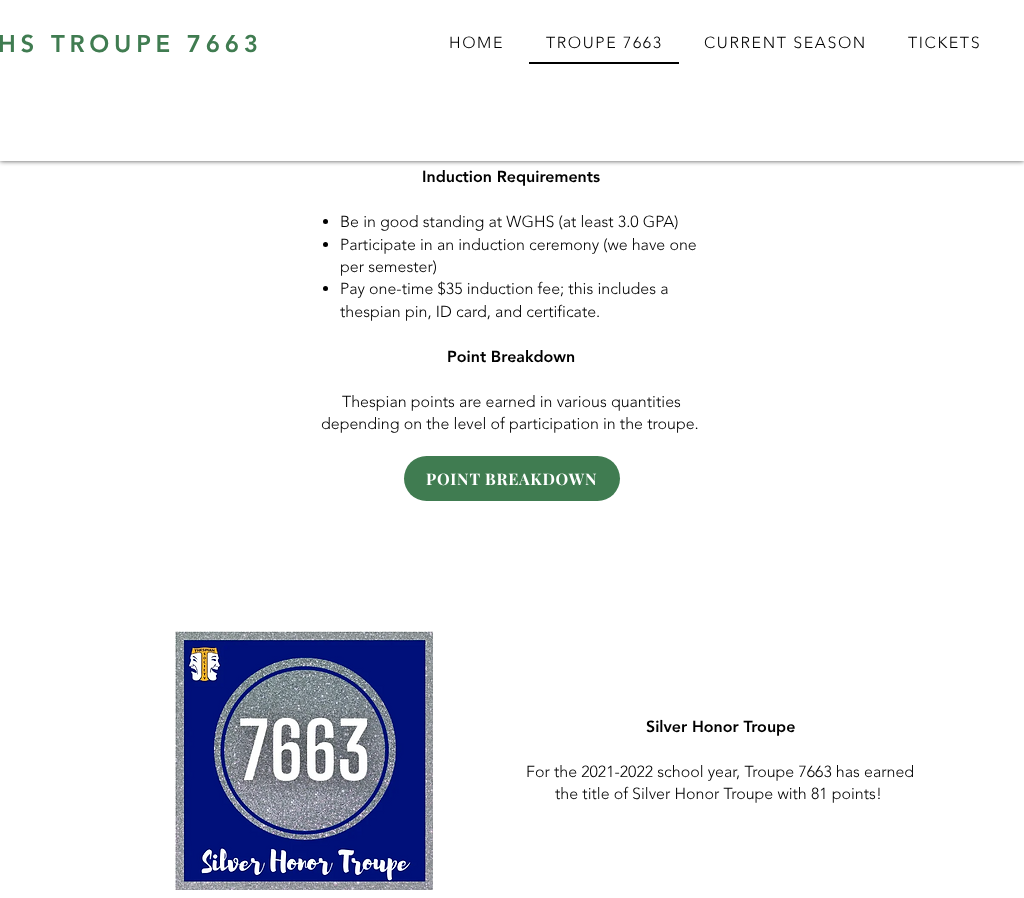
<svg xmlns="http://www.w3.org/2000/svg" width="1024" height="898">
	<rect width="100%" height="100%" fill="#FFFFFF" />
	<rect x="0" y="0" width="1024" height="161" fill="#000000" fill-opacity="0.7" filter="blur(2.5px)" />
	<rect x="0" y="0" width="1024" height="161" fill="#FFFFFF" />
	<text x="-2" y="52" font-family="'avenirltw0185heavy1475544'" font-size="24" font-weight="900" letter-spacing="4.75" fill="#407C51">HS TROUPE 7663</text>
	<text x="449" y="48" font-family="'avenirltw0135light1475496'" font-size="16" font-weight="300" letter-spacing="1.6" fill="#000000">HOME</text>
	<rect x="529" y="62" width="150" height="2" fill="#000000" />
	<g font-family="'avenirltw0135light1475496'" font-size="16" font-weight="300" letter-spacing="1.6" fill="#000000">
		<text x="546" y="48">TROUPE 7663</text>
		<text x="704" y="48">CURRENT SEASON</text>
		<text x="908" y="48">TICKETS</text>
	</g>
	<text x="422" y="182" font-family="'avenirltw0185heavy1475544'" font-size="16" font-weight="900" fill="#000000">Induction Requirements</text>
	<circle cx="325.5" cy="221.5" r="2.5" fill="#000000" />
	<text x="340" y="227" font-family="'avenirltw0135light1475496'" font-size="16" font-weight="300" fill="#000000">Be in good standing at WGHS (at least 3.0 GPA)</text>
	<circle cx="325.5" cy="244.5" r="2.5" fill="#000000" />
	<g font-family="'avenirltw0135light1475496'" font-size="16" font-weight="300" fill="#000000">
		<text x="340" y="250">Participate in an induction ceremony (we have one</text>
		<text x="340" y="272">per semester)</text>
	</g>
	<circle cx="325.5" cy="288.5" r="2.5" fill="#000000" />
	<g font-family="'avenirltw0135light1475496'" font-size="16" font-weight="300" fill="#000000">
		<text x="340" y="294">Pay one-time $35 induction fee; this includes a</text>
		<text x="340" y="317">thespian pin, ID card, and certificate.</text>
	</g>
	<text x="447" y="362" font-family="'avenirltw0185heavy1475544'" font-size="16" font-weight="900" fill="#000000">Point Breakdown</text>
	<g font-family="'avenirltw0135light1475496'" font-size="16" font-weight="300" fill="#000000">
		<text x="342" y="407">Thespian points are earned in various quantities</text>
		<text x="321" y="429">depending on the level of participation in the troupe.</text>
	</g>
	<rect x="404" y="456" width="216" height="45" rx="22.5" fill="#407C51" />
	<text x="426" y="485" font-family="Playfair Display" font-size="16" font-weight="700" letter-spacing="0.75" fill="#FFFFFF">POINT BREAKDOWN</text>
	<image x="175" y="631" width="258" height="259" href="assets/img1.png" />
	<text x="646" y="732" font-family="'avenirltw0185heavy1475544'" font-size="16" font-weight="900" fill="#000000">Silver Honor Troupe</text>
	<g font-family="'avenirltw0135light1475496'" font-size="16" font-weight="300" fill="#000000">
		<text x="526" y="777">For the 2021-2022 school year, Troupe 7663 has earned</text>
		<text x="555" y="799">the title of Silver Honor Troupe with 81 points!</text>
	</g>
</svg>
